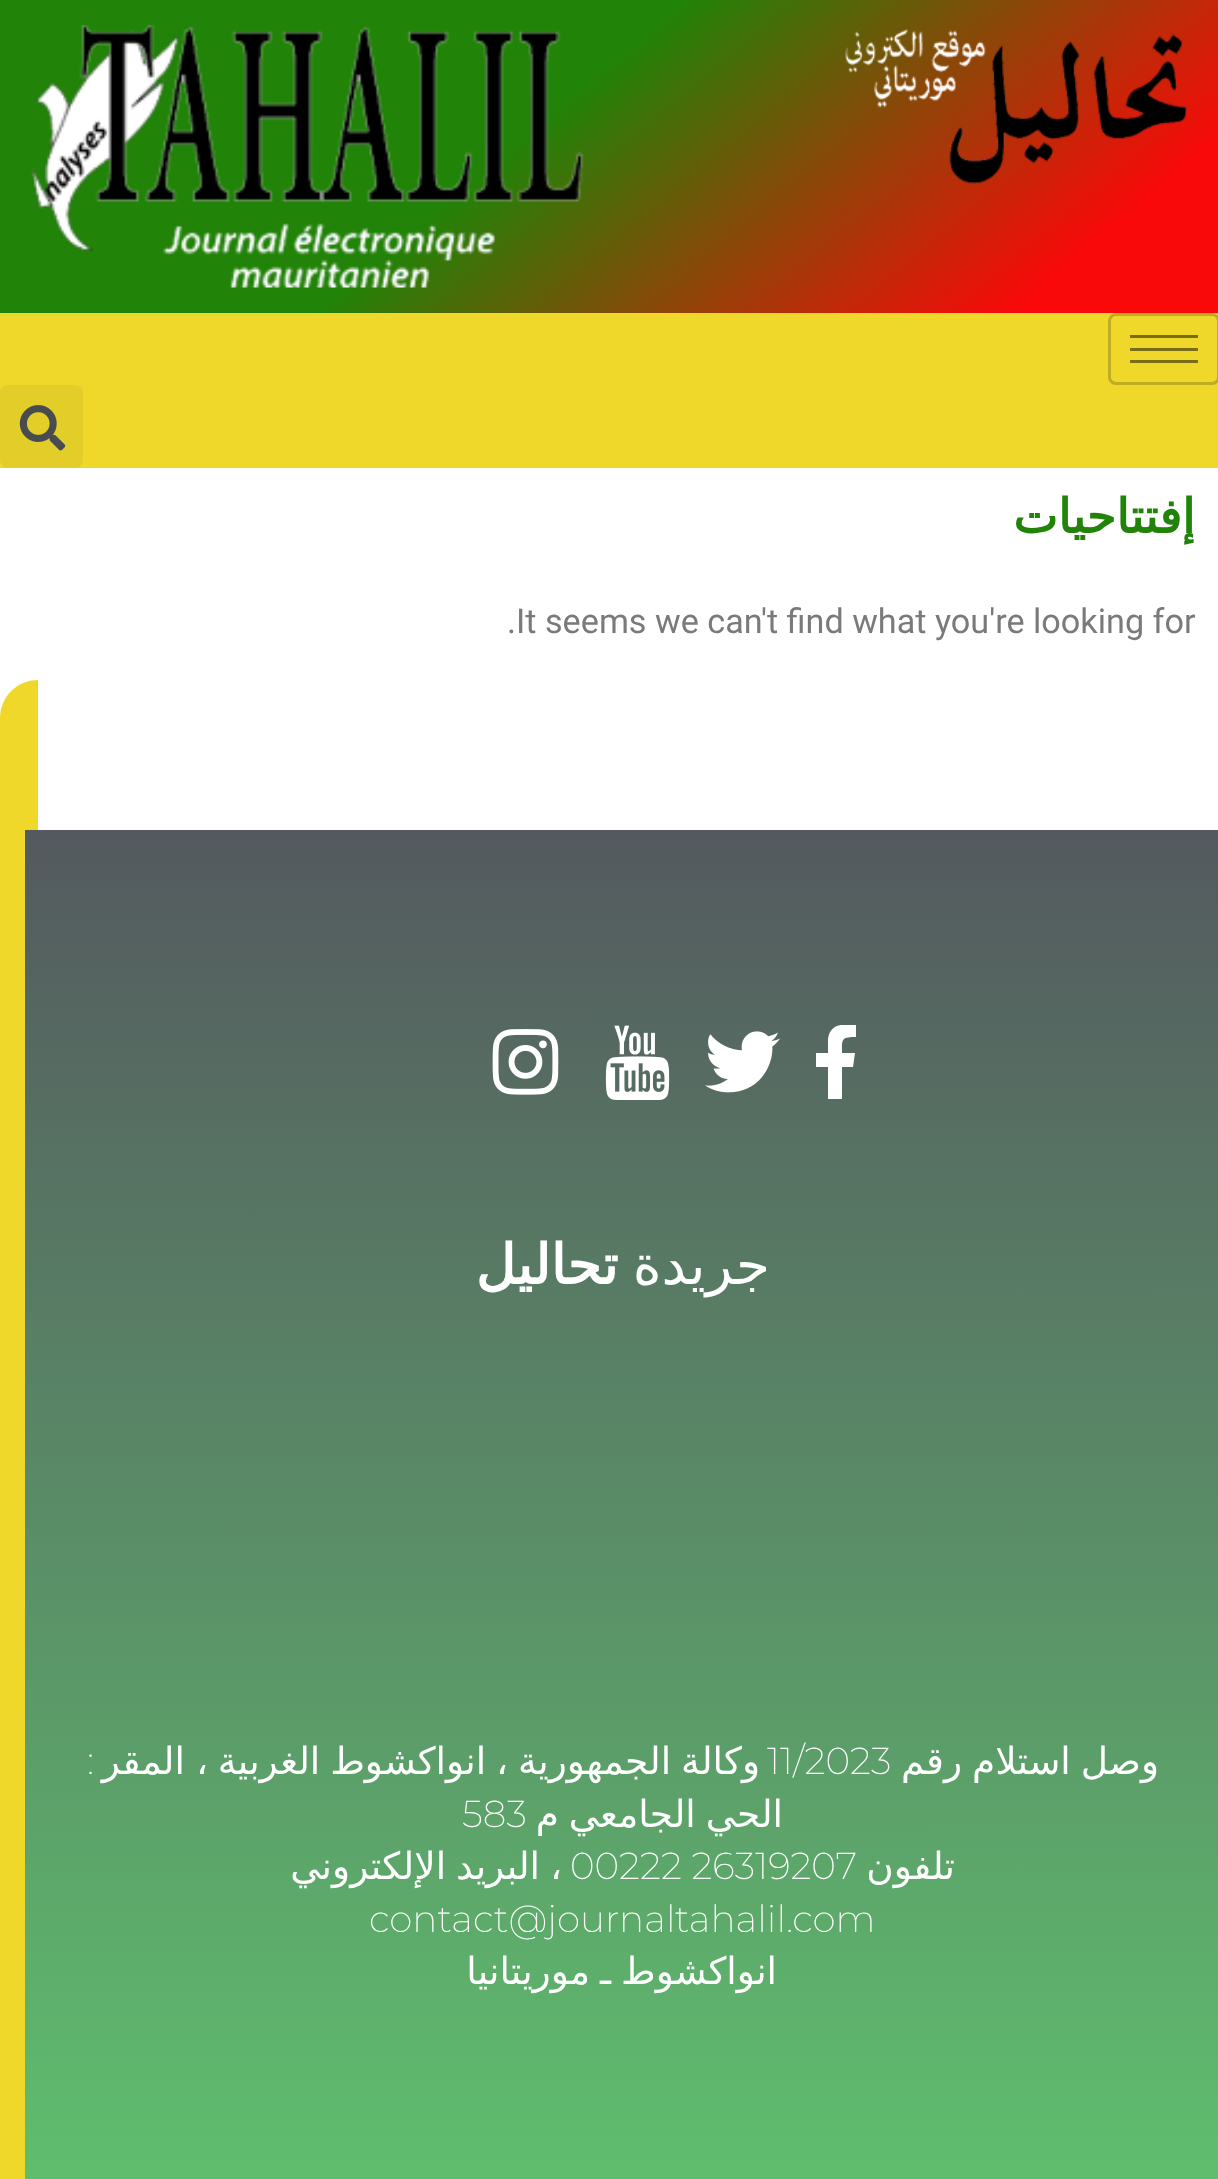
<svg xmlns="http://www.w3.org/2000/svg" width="1218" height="2179">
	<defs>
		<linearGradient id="g1" gradientUnits="userSpaceOnUse" x1="281" y1="-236" x2="939" y2="548"><stop offset="0.43" stop-color="#218308" /><stop offset="0.87" stop-color="#F90909" /></linearGradient>
		<linearGradient id="g2" gradientUnits="userSpaceOnUse" x1="622" y1="830" x2="623" y2="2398"><stop offset="0" stop-color="#54595F" /><stop offset="1" stop-color="#61CE70" /></linearGradient>
		<clipPath id="clip1"><rect x="85" y="1025" width="1075" height="75" /></clipPath>
	</defs>
	<rect width="100%" height="100%" fill="#FFFFFF" />
	<rect x="0" y="0" width="1218" height="313" fill="url(#g1)" />
	<image x="845" y="29" width="342" height="155" href="assets/img1.png" />
	<image x="31" y="25" width="553" height="263" href="assets/img2.png" />
	<rect x="0" y="313" width="1218" height="155" fill="#EFD82A" />
	<rect x="1109.5" y="314.5" width="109" height="69" rx="6.5" fill="none" stroke="#BFAD22" stroke-width="3" />
	<rect x="1130" y="335" width="68" height="3" fill="#786C15" />
	<rect x="1130" y="348" width="68" height="3" fill="#786C15" />
	<rect x="1130" y="360" width="68" height="3" fill="#786C15" />
	<rect x="0" y="385" width="83" height="83" rx="8" fill="#E3CD28" />
	<image x="19" y="405" width="47" height="46" href="assets/img3.png" />
	<text x="1195" y="533" font-family="DejaVu Sans" font-size="47.5" font-weight="700" direction="rtl" fill="#218308">إفتتاحيات</text>
	<text x="507" y="633" font-family="Roboto" font-size="34.2" fill="#7A7A7A">.It seems we can't find what you're looking for</text>
	<path d="M38 680V830H0V718C0 697 17 680 38 680Z" fill="#EFD82A" />
	<rect x="25" y="830" width="1193" height="1349" fill="url(#g2)" />
	<rect x="0" y="830" width="25" height="1349" fill="#EFD82A" />
	<g clip-path="url(#clip1)">
		<path d="M853 1067H842V1099H828V1067H816V1053H828V1039C830 1023 844 1024 856 1025V1037C841 1037 842 1039 842 1053H855Z" fill="#FFFFFF" />
	</g>
	<image x="705" y="1031" width="75" height="62" href="assets/img4.png" />
	<image x="605" y="1025" width="65" height="75" href="assets/img5.png" />
	<image x="492" y="1029" width="67" height="66" href="assets/img6.png" />
	<text x="770" y="1284" font-family="DejaVu Sans" font-size="55" direction="rtl" fill="#FFFFFF">جريدة</text>
	<text x="618" y="1284" font-family="DejaVu Sans" font-size="55" font-weight="700" direction="rtl" fill="#FFFFFF">تحاليل</text>
	<text x="1159" y="1774" word-spacing="-2" font-family="DejaVu Sans" font-size="37.5" direction="rtl" fill="#FFFFFF">وصل استلام رقم</text>
	<text x="767" y="1774" font-family="Montserrat" font-size="37.5" font-weight="200" fill="#FFFFFF">11/2023</text>
	<g font-family="DejaVu Sans" font-size="37.5" direction="rtl" fill="#FFFFFF">
		<text x="760" y="1774" word-spacing="-2">وكالة الجمهورية ، انواكشوط الغربية</text>
		<text x="208" y="1774" word-spacing="-1">، المقر</text>
	</g>
	<text x="94" y="1774" font-family="Montserrat" font-size="37.5" font-weight="200" direction="rtl" fill="#FFFFFF">:</text>
	<text x="783" y="1827" word-spacing="-2" font-family="DejaVu Sans" font-size="37.5" direction="rtl" fill="#FFFFFF">الحي الجامعي م</text>
	<text x="462" y="1827" font-family="Montserrat" font-size="37.5" font-weight="200" fill="#FFFFFF">583</text>
	<text x="955" y="1879" font-family="DejaVu Sans" font-size="37.5" direction="rtl" fill="#FFFFFF">تلفون</text>
	<text x="570" y="1879" font-family="Montserrat" font-size="37.5" font-weight="200" fill="#FFFFFF">00222 26319207</text>
	<text x="562" y="1879" word-spacing="-2" font-family="DejaVu Sans" font-size="37.5" direction="rtl" fill="#FFFFFF">، البريد الإلكتروني</text>
	<text x="369" y="1932" font-family="Montserrat" font-size="37.5" font-weight="200" fill="#FFFFFF">contact@journaltahalil.com</text>
	<text x="777" y="1984" word-spacing="-2" font-family="DejaVu Sans" font-size="37.5" direction="rtl" fill="#FFFFFF">انواكشوط ـ موريتانيا</text>
</svg>
